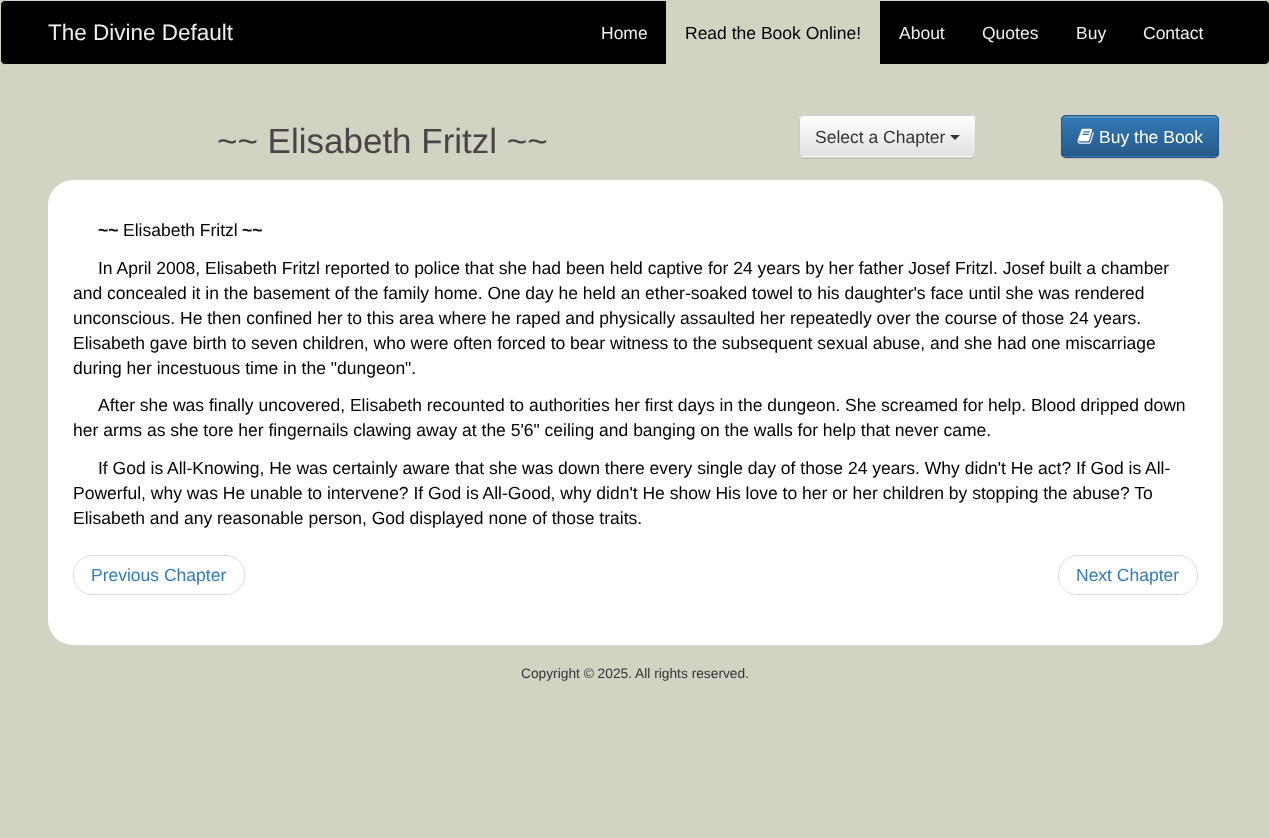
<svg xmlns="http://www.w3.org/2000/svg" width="1269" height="838">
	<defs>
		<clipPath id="clip1"><rect x="799" y="115" width="177" height="43" rx="5" /></clipPath>
		<linearGradient id="g1" gradientUnits="userSpaceOnUse" x1="888" y1="116" x2="888" y2="156"><stop offset="0" stop-color="#FFFFFF" /><stop offset="1" stop-color="#E0E0E0" /></linearGradient>
		<clipPath id="clip2"><rect x="1061" y="115" width="158" height="43" rx="5" /></clipPath>
		<linearGradient id="g2" gradientUnits="userSpaceOnUse" x1="1140" y1="116" x2="1140" y2="156"><stop offset="0" stop-color="#337AB7" /><stop offset="1" stop-color="#265A88" /></linearGradient>
	</defs>
	<rect width="100%" height="100%" fill="#D2D3C3" />
	<rect x="0.5" y="0.5" width="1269" height="64" rx="4.5" fill="#000000" stroke="#D2D3C3" />
	<text x="48" y="40" font-family="Liberation Sans" font-size="22.5" fill="#ECF0F1">The Divine Default</text>
	<text x="601" y="39" font-family="Liberation Sans" font-size="17.5" fill="#ECF0F1">Home</text>
	<rect x="666" y="1" width="214" height="63" fill="#D2D3C3" />
	<text x="685" y="39" font-family="Liberation Sans" font-size="17.5" fill="#000000">Read the Book Online!</text>
	<g font-family="Liberation Sans" font-size="17.5" fill="#ECF0F1">
		<text x="899" y="39">About</text>
		<text x="982" y="39">Quotes</text>
		<text x="1076" y="39">Buy</text>
		<text x="1143" y="39">Contact</text>
	</g>
	<text x="217" y="153" font-family="Liberation Sans" font-size="35" fill="#4A4446">~~ Elisabeth Fritzl ~~</text>
	<rect x="799" y="116" width="177" height="43" rx="5" fill="#000000" fill-opacity="0.07" filter="blur(0.5px)" />
	<rect x="799" y="115" width="177" height="43" rx="5" fill="#FFFFFF" />
	<g clip-path="url(#clip1)">
		<rect x="799" y="116" width="177" height="40" fill="url(#g1)" />
	</g>
	<rect x="799.5" y="115.5" width="176" height="42" rx="4.5" fill="none" stroke="#CCCCCC" />
	<text x="815" y="143" font-family="Liberation Sans" font-size="17.5" fill="#333333">Select a Chapter</text>
	<path d="M950 135H960L955 140Z" fill="#333333" />
	<rect x="1061" y="116" width="158" height="43" rx="5" fill="#000000" fill-opacity="0.07" filter="blur(0.5px)" />
	<rect x="1061" y="115" width="158" height="43" rx="5" fill="#337AB7" />
	<g clip-path="url(#clip2)">
		<rect x="1061" y="116" width="158" height="40" fill="url(#g2)" />
	</g>
	<path d="M1066 118H1214C1216 118 1218 119 1218 121C1218 119 1218 117 1216 116H1067H1065L1063 119Z" fill="#528EC1" />
	<rect x="1061.5" y="115.5" width="157" height="42" rx="4.5" fill="none" stroke="#245580" />
	<image x="1077" y="128" width="17" height="16" href="assets/img1.png" />
	<text x="1099" y="143" font-family="Liberation Sans" font-size="17.5" fill="#FFFFFF">Buy the Book</text>
	<rect x="48" y="180" width="1175" height="465" rx="25" fill="#FFFFFF" />
	<text x="98" y="236" font-family="Liberation Sans" font-size="17.5" font-weight="700" fill="#000000">~~</text>
	<text x="123" y="236" font-family="Liberation Sans" font-size="17.5" fill="#000000">Elisabeth Fritzl</text>
	<text x="242" y="236" font-family="Liberation Sans" font-size="17.5" font-weight="700" fill="#000000">~~</text>
	<g font-family="Liberation Sans" font-size="17.5" fill="#000000">
		<text x="98" y="274">In April 2008, Elisabeth Fritzl reported to police that she had been held captive for 24 years by her father Josef Fritzl. Josef built a chamber</text>
		<text x="73" y="299">and concealed it in the basement of the family home. One day he held an ether-soaked towel to his daughter's face until she was rendered</text>
		<text x="73" y="324">unconscious. He then confined her to this area where he raped and physically assaulted her repeatedly over the course of those 24 years.</text>
		<text x="73" y="349">Elisabeth gave birth to seven children, who were often forced to bear witness to the subsequent sexual abuse, and she had one miscarriage</text>
		<text x="73" y="374">during her incestuous time in the "dungeon".</text>
		<text x="98" y="411">After she was finally uncovered, Elisabeth recounted to authorities her first days in the dungeon. She screamed for help. Blood dripped down</text>
		<text x="73" y="436">her arms as she tore her fingernails clawing away at the 5'6" ceiling and banging on the walls for help that never came.</text>
		<text x="98" y="474">If God is All-Knowing, He was certainly aware that she was down there every single day of those 24 years. Why didn't He act? If God is All-</text>
		<text x="73" y="499">Powerful, why was He unable to intervene? If God is All-Good, why didn't He show His love to her or her children by stopping the abuse? To</text>
		<text x="73" y="524">Elisabeth and any reasonable person, God displayed none of those traits.</text>
	</g>
	<rect x="73.5" y="555.5" width="171" height="39" rx="18.5" fill="none" stroke="#DDDDDD" />
	<text x="91" y="581" font-family="Liberation Sans" font-size="17.5" fill="#337AB7">Previous Chapter</text>
	<rect x="1058.5" y="555.5" width="139" height="39" rx="18.5" fill="none" stroke="#DDDDDD" />
	<text x="1076" y="581" font-family="Liberation Sans" font-size="17.5" fill="#337AB7">Next Chapter</text>
	<text x="521" y="678" font-family="Liberation Sans" font-size="13.75" fill="#333333">Copyright © 2025. All rights reserved.</text>
</svg>
